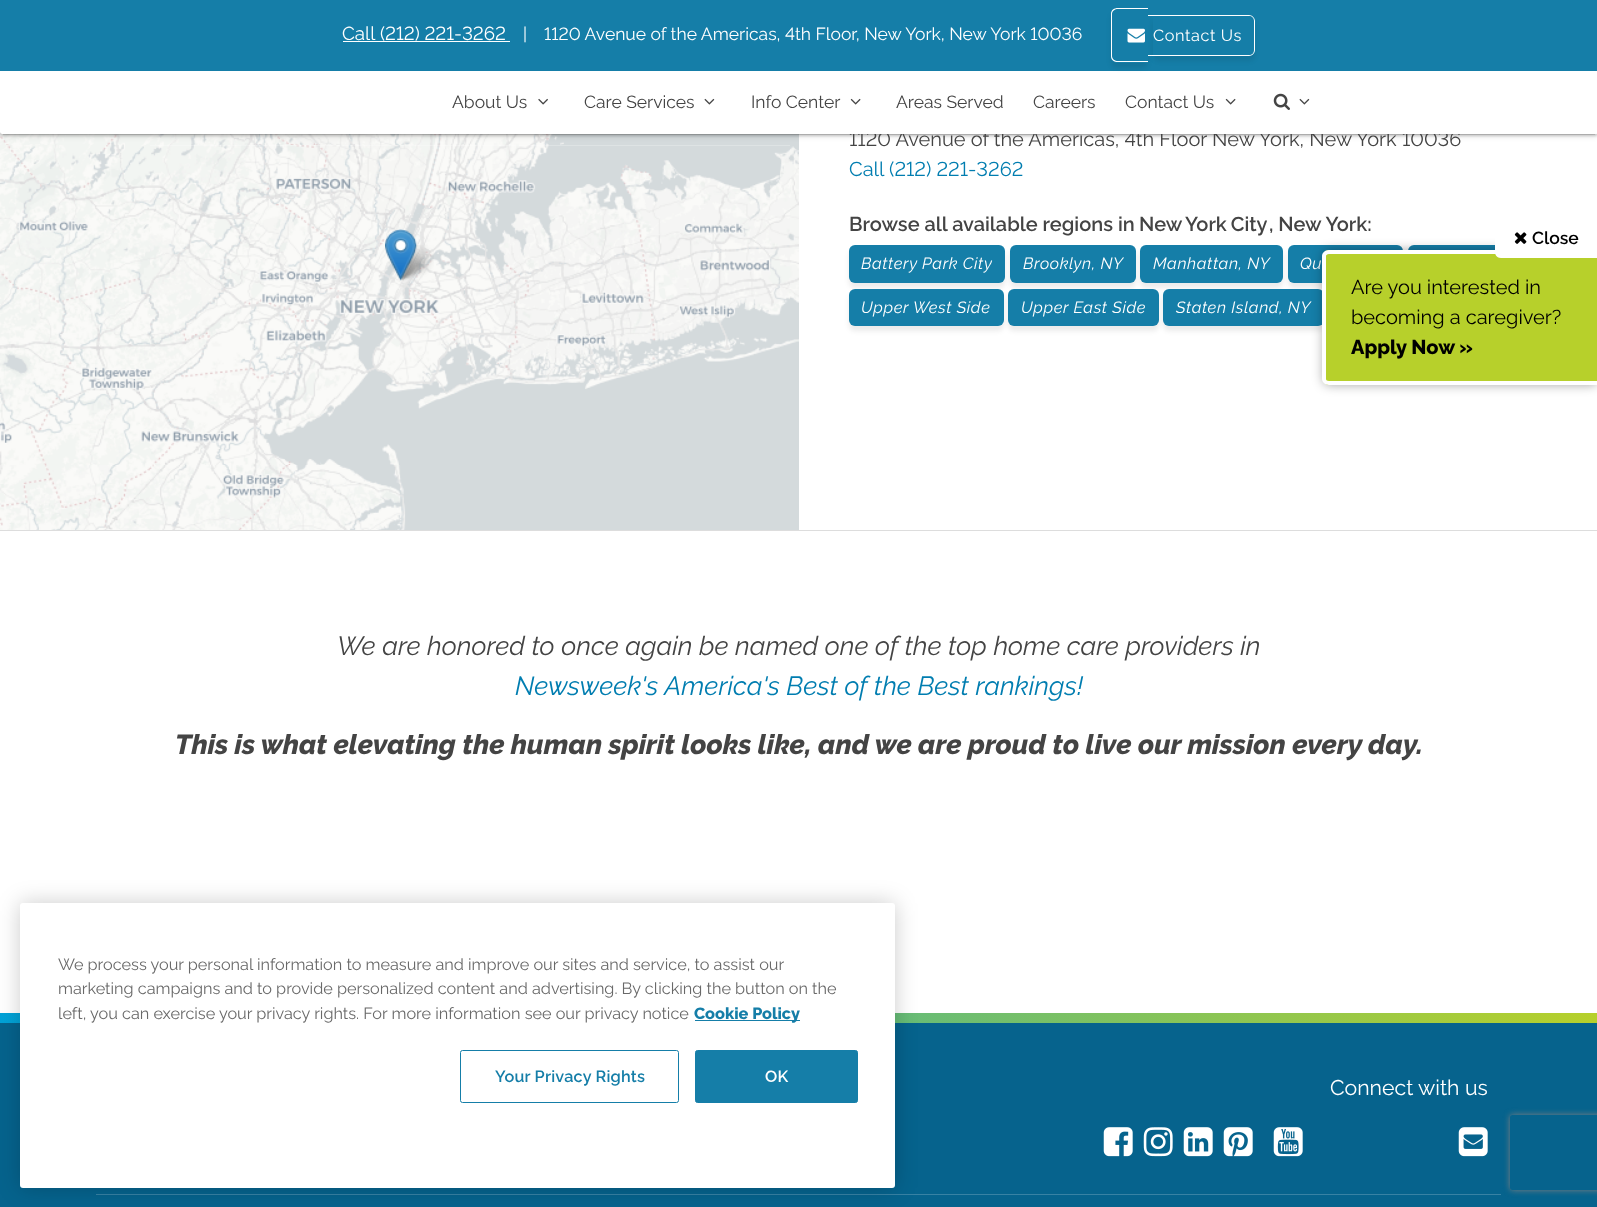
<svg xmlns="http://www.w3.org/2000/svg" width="1597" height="1207">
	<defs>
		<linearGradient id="g1" gradientUnits="userSpaceOnUse" x1="0" y1="1018" x2="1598" y2="1018"><stop offset="0" stop-color="#01A2D8" /><stop offset="1" stop-color="#B7D02B" /></linearGradient>
		<clipPath id="clip1"><path d="M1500 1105H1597V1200H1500ZM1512.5 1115H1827.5C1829 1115 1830 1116 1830 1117.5V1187.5C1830 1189 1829 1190 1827.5 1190H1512.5C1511 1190 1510 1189 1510 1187.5V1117.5C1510 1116 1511 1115 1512.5 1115Z" clip-rule="evenodd" /></clipPath>
	</defs>
	<rect width="100%" height="100%" fill="#FFFFFF" />
	<image x="0" y="131" width="150" height="14" href="assets/img6.png" />
	<image x="150" y="134" width="320" height="11" href="assets/img7.png" />
	<image x="470" y="134" width="320" height="11" href="assets/img8.png" />
	<image x="790" y="134" width="9" height="11" href="assets/img9.png" />
	<rect x="0" y="1" width="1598" height="134" rx="2.5" fill="#000000" fill-opacity="0.2" filter="blur(3px)" />
	<rect x="3" y="6" width="1592" height="129" fill="#000000" fill-opacity="0.12" filter="blur(0.5px)" />
	<rect x="0" y="3" width="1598" height="133" rx="2.5" fill="#000000" fill-opacity="0.14" filter="blur(1px)" />
	<text x="849" y="146" font-family="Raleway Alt" font-size="20" fill="#444444">1120 Avenue of the Americas, 4th Floor</text>
	<text x="1212" y="146" font-family="Raleway" font-size="20" fill="#444444">New York, New York</text>
	<text x="1402" y="146" font-family="Raleway Alt" font-size="20" fill="#444444">10036</text>
	<rect x="0" y="0" width="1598" height="134" rx="2.5" fill="#FFFFFF" />
	<rect x="0" y="0" width="1597" height="71" fill="#157EA8" />
	<text x="342" y="40" font-family="Raleway" font-size="18.75" fill="#FFFFFF">Call</text>
	<rect x="343" y="41" width="167" height="1" fill="#FFFFFF" />
	<text x="380" y="40" font-family="Raleway Alt" font-size="18.75" fill="#FFFFFF">(212) 221-3262</text>
	<text x="523" y="40" font-family="Raleway" font-size="17.5" fill="#FFFFFF">|</text>
	<text x="544" y="40" font-family="Raleway Alt" font-size="17.5" fill="#FFFFFF">1120 Avenue of the Americas, 4th Floor, New York, New York 10036</text>
	<rect x="1111" y="13" width="37" height="55" rx="6" fill="#000000" fill-opacity="0.08" filter="blur(2.5px)" />
	<path d="M1117 8H1148V63H1117C1113.5 63 1111 60.5 1111 57V14C1111 10.5 1113.5 8 1117 8Z" fill="#157EA8" />
	<path d="M1118 8H1148V62H1118C1114 62 1111 60 1111 56V14C1111 10 1114 8 1118 8ZM1118 9H1148V61H1118C1115 61 1112 59 1112 56V14C1112 11 1115 9 1118 9Z" fill="#FFFFFF" fill-rule="evenodd" />
	<rect x="1148" y="15" width="2" height="41" fill="#157EA8" />
	<rect x="1148" y="15" width="5" height="1" fill="#FFFFFF" />
	<rect x="1148" y="55" width="5" height="1" fill="#FFFFFF" />
	<rect x="1153" y="20" width="102" height="41" rx="6" fill="#000000" fill-opacity="0.08" filter="blur(2.5px)" />
	<path d="M1153 15H1249C1252.5 15 1255 17.5 1255 21V50C1255 53.5 1252.5 56 1249 56H1153Z" fill="#157EA8" />
	<path d="M1152 15H1249C1252 15 1255 18 1255 21V50C1255 53 1252 56 1249 56H1152ZM1152 16H1249C1252 16 1254 18 1254 21V50C1254 53 1252 55 1249 55H1152Z" fill="#FFFFFF" fill-rule="evenodd" />
	<image x="1127" y="28" width="18" height="15" href="assets/img1.png" />
	<text x="1153" y="41" font-family="Raleway" font-size="16.25" letter-spacing="0.6" fill="#FFFFFF">Contact Us</text>
	<text x="452" y="108" font-family="Raleway" font-size="17.5" fill="#444444">About Us</text>
	<image x="538" y="98" width="10" height="7" href="assets/img2.png" />
	<text x="584" y="108" font-family="Raleway" font-size="17.5" fill="#444444">Care Services</text>
	<image x="704" y="98" width="11" height="7" href="assets/img3.png" />
	<text x="751" y="108" font-family="Raleway" font-size="17.5" fill="#444444">Info Center</text>
	<image x="850" y="98" width="11" height="7" href="assets/img4.png" />
	<g font-family="Raleway" font-size="17.5" fill="#444444">
		<text x="896" y="108">Areas Served</text>
		<text x="1033" y="108">Careers</text>
		<text x="1125" y="108">Contact Us</text>
	</g>
	<image x="1225" y="98" width="11" height="7" href="assets/img4.png" />
	<image x="1273" y="93" width="17" height="17" href="assets/img5.png" />
	<image x="1299" y="98" width="11" height="7" href="assets/img3.png" />
	<image x="0" y="145" width="150" height="320" href="assets/img10.png" />
	<image x="150" y="145" width="320" height="320" href="assets/img11.png" />
	<image x="470" y="145" width="320" height="320" href="assets/img12.png" />
	<image x="790" y="145" width="9" height="320" href="assets/img13.png" />
	<image x="0" y="465" width="150" height="65" href="assets/img14.png" />
	<image x="150" y="465" width="320" height="65" href="assets/img15.png" />
	<rect x="470" y="465" width="329" height="65" fill="#D4DADC" />
	<image x="396" y="245" width="38" height="36" href="assets/img17.png" />
	<image x="385" y="229" width="32" height="52" href="assets/img16.png" />
	<text x="849" y="176" font-family="Raleway" font-size="20" fill="#007DB0">Call</text>
	<text x="889" y="176" font-family="Raleway Alt" font-size="20" fill="#007DB0">(212) 221-3262</text>
	<g font-family="Raleway" font-size="20" font-weight="600" fill="#444444">
		<text x="849" y="231">Browse all available regions in</text>
		<text x="1139" y="231" word-spacing="-1">New York City</text>
		<text x="1269" y="231">, New York:</text>
	</g>
	<rect x="849" y="250" width="156" height="38" rx="6" fill="#000000" fill-opacity="0.08" filter="blur(2.5px)" />
	<rect x="849" y="245" width="156" height="38" rx="6" fill="#157EA8" />
	<text x="861" y="269" font-family="Raleway" font-size="16.25" font-style="italic" letter-spacing="0.6" fill="#FFFFFF">Battery Park City</text>
	<rect x="1010" y="250" width="126" height="38" rx="6" fill="#000000" fill-opacity="0.08" filter="blur(2.5px)" />
	<rect x="1010" y="245" width="126" height="38" rx="6" fill="#157EA8" />
	<text x="1023" y="269" font-family="Raleway" font-size="16.25" font-style="italic" letter-spacing="0.6" fill="#FFFFFF">Brooklyn, NY</text>
	<rect x="1140" y="250" width="143" height="38" rx="6" fill="#000000" fill-opacity="0.08" filter="blur(2.5px)" />
	<rect x="1140" y="245" width="143" height="38" rx="6" fill="#157EA8" />
	<text x="1153" y="269" font-family="Raleway" font-size="16.25" font-style="italic" letter-spacing="0.6" fill="#FFFFFF">Manhattan, NY</text>
	<rect x="1288" y="250" width="115" height="38" rx="6" fill="#000000" fill-opacity="0.08" filter="blur(2.5px)" />
	<rect x="1288" y="245" width="115" height="38" rx="6" fill="#157EA8" />
	<text x="1300" y="269" font-family="Raleway" font-size="16.25" font-style="italic" letter-spacing="0.6" fill="#FFFFFF">Qu</text>
	<rect x="1408" y="245" width="136" height="38" rx="6" fill="#157EA8" />
	<rect x="849" y="294" width="155" height="37" rx="6" fill="#000000" fill-opacity="0.08" filter="blur(2.5px)" />
	<rect x="849" y="289" width="155" height="37" rx="6" fill="#157EA8" />
	<text x="861" y="313" font-family="Raleway" font-size="16.25" font-style="italic" letter-spacing="0.6" fill="#FFFFFF">Upper West Side</text>
	<rect x="1008" y="294" width="151" height="37" rx="6" fill="#000000" fill-opacity="0.08" filter="blur(2.5px)" />
	<rect x="1008" y="289" width="151" height="37" rx="6" fill="#157EA8" />
	<text x="1021" y="313" font-family="Raleway" font-size="16.25" font-style="italic" letter-spacing="0.6" fill="#FFFFFF">Upper East Side</text>
	<rect x="1163" y="294" width="161" height="37" rx="6" fill="#000000" fill-opacity="0.08" filter="blur(2.5px)" />
	<rect x="1163" y="289" width="161" height="37" rx="6" fill="#157EA8" />
	<text x="1176" y="313" font-family="Raleway" font-size="16.25" font-style="italic" letter-spacing="0.6" fill="#FFFFFF">Staten Island, NY</text>
	<rect x="1323" y="250" width="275" height="135" rx="6" fill="#000000" fill-opacity="0.35" filter="blur(5.5px)" />
	<path d="M1329 250H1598V385H1329C1325.5 385 1323 382.5 1323 379V256C1323 252.5 1325.5 250 1329 250Z" fill="#B7D02B" />
	<path d="M1329 250H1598V385H1329C1325 385 1322 382 1322 379V256C1322 253 1325 250 1329 250ZM1329 254H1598V381H1329C1327 381 1326 380 1326 379V256C1326 255 1327 254 1329 254Z" fill="#FFFFFF" fill-rule="evenodd" />
	<path d="M1501 219H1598V258H1501C1497.5 258 1495 255.5 1495 252V225C1495 221.5 1497.5 219 1501 219Z" fill="#FFFFFF" />
	<image x="1514" y="232" width="13" height="12" href="assets/img18.png" />
	<text x="1532" y="244" font-family="Raleway" font-size="17.5" font-weight="600" fill="#000000">Close</text>
	<g font-family="Raleway" font-size="20" fill="#000000">
		<text x="1351" y="294">Are you interested in</text>
		<text x="1351" y="324">becoming a caregiver?</text>
	</g>
	<text x="1351" y="354" font-family="Raleway" font-size="20" font-weight="800" fill="#000000">Apply Now »</text>
	<rect x="0" y="530" width="1597" height="1" fill="#DDDDDD" />
	<text x="337" y="655" font-family="Raleway" font-size="26.25" font-style="italic" fill="#444444">We are honored to once again be named one of the top home care providers in</text>
	<text x="515" y="695" font-family="Raleway" font-size="26.25" font-style="italic" fill="#007DB0">Newsweek's America's Best of the Best rankings!</text>
	<text x="175" y="754" font-family="Raleway" font-size="27.5" font-weight="800" font-style="italic" fill="#444444">This is what elevating the human spirit looks like, and we are proud to live our mission every day.</text>
	<rect x="0" y="1013" width="1597" height="10" fill="url(#g1)" />
	<rect x="0" y="1023" width="1597" height="184" fill="#06638D" />
	<rect x="96" y="1194" width="1405" height="1" fill="#3882A4" />
	<rect x="20" y="903" width="875" height="285" rx="3" fill="#000000" fill-opacity="0.2" filter="blur(11px)" />
	<rect x="20" y="903" width="875" height="285" rx="3" fill="#FFFFFF" />
	<g font-family="Raleway" font-size="16.25" fill="#696969">
		<text x="58" y="970">We process your personal information to measure and improve our sites and service, to assist our</text>
		<text x="58" y="994">marketing campaigns and to provide personalized content and advertising. By clicking the button on the</text>
		<text x="58" y="1019">left, you can exercise your privacy rights. For more information see our privacy notice</text>
	</g>
	<rect x="695" y="1020" width="105" height="1" fill="#157EA8" />
	<text x="694" y="1019" font-family="Raleway" font-size="16.25" font-weight="800" fill="#157EA8">Cookie Policy</text>
	<rect x="460.5" y="1050.5" width="218" height="52" rx="2" fill="none" stroke="#157EA8" />
	<text x="495" y="1082" font-family="Raleway" font-size="16.25" font-weight="600" letter-spacing="0.2" fill="#157EA8">Your Privacy Rights</text>
	<rect x="695.5" y="1050.5" width="162" height="52" rx="2" fill="#157EA8" stroke="#157EA8" />
	<text x="765" y="1082" font-family="Raleway" font-size="16.25" font-weight="600" letter-spacing="0.2" fill="#FFFFFF">OK</text>
	<text x="1330" y="1095" font-family="Raleway" font-size="21.25" fill="#FFFFFF">Connect with us</text>
	<image x="1103" y="1127" width="30" height="30" href="assets/img19.png" />
	<image x="1143" y="1127" width="30" height="30" href="assets/img20.png" />
	<image x="1183" y="1127" width="30" height="30" href="assets/img21.png" />
	<image x="1223" y="1127" width="30" height="30" href="assets/img22.png" />
	<image x="1273" y="1127" width="30" height="30" href="assets/img23.png" />
	<image x="1458" y="1127" width="30" height="30" href="assets/img24.png" />
	<g clip-path="url(#clip1)">
		<rect x="1510" y="1115" width="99" height="75" rx="2.5" fill="#808080" filter="blur(3px)" />
	</g>
</svg>
